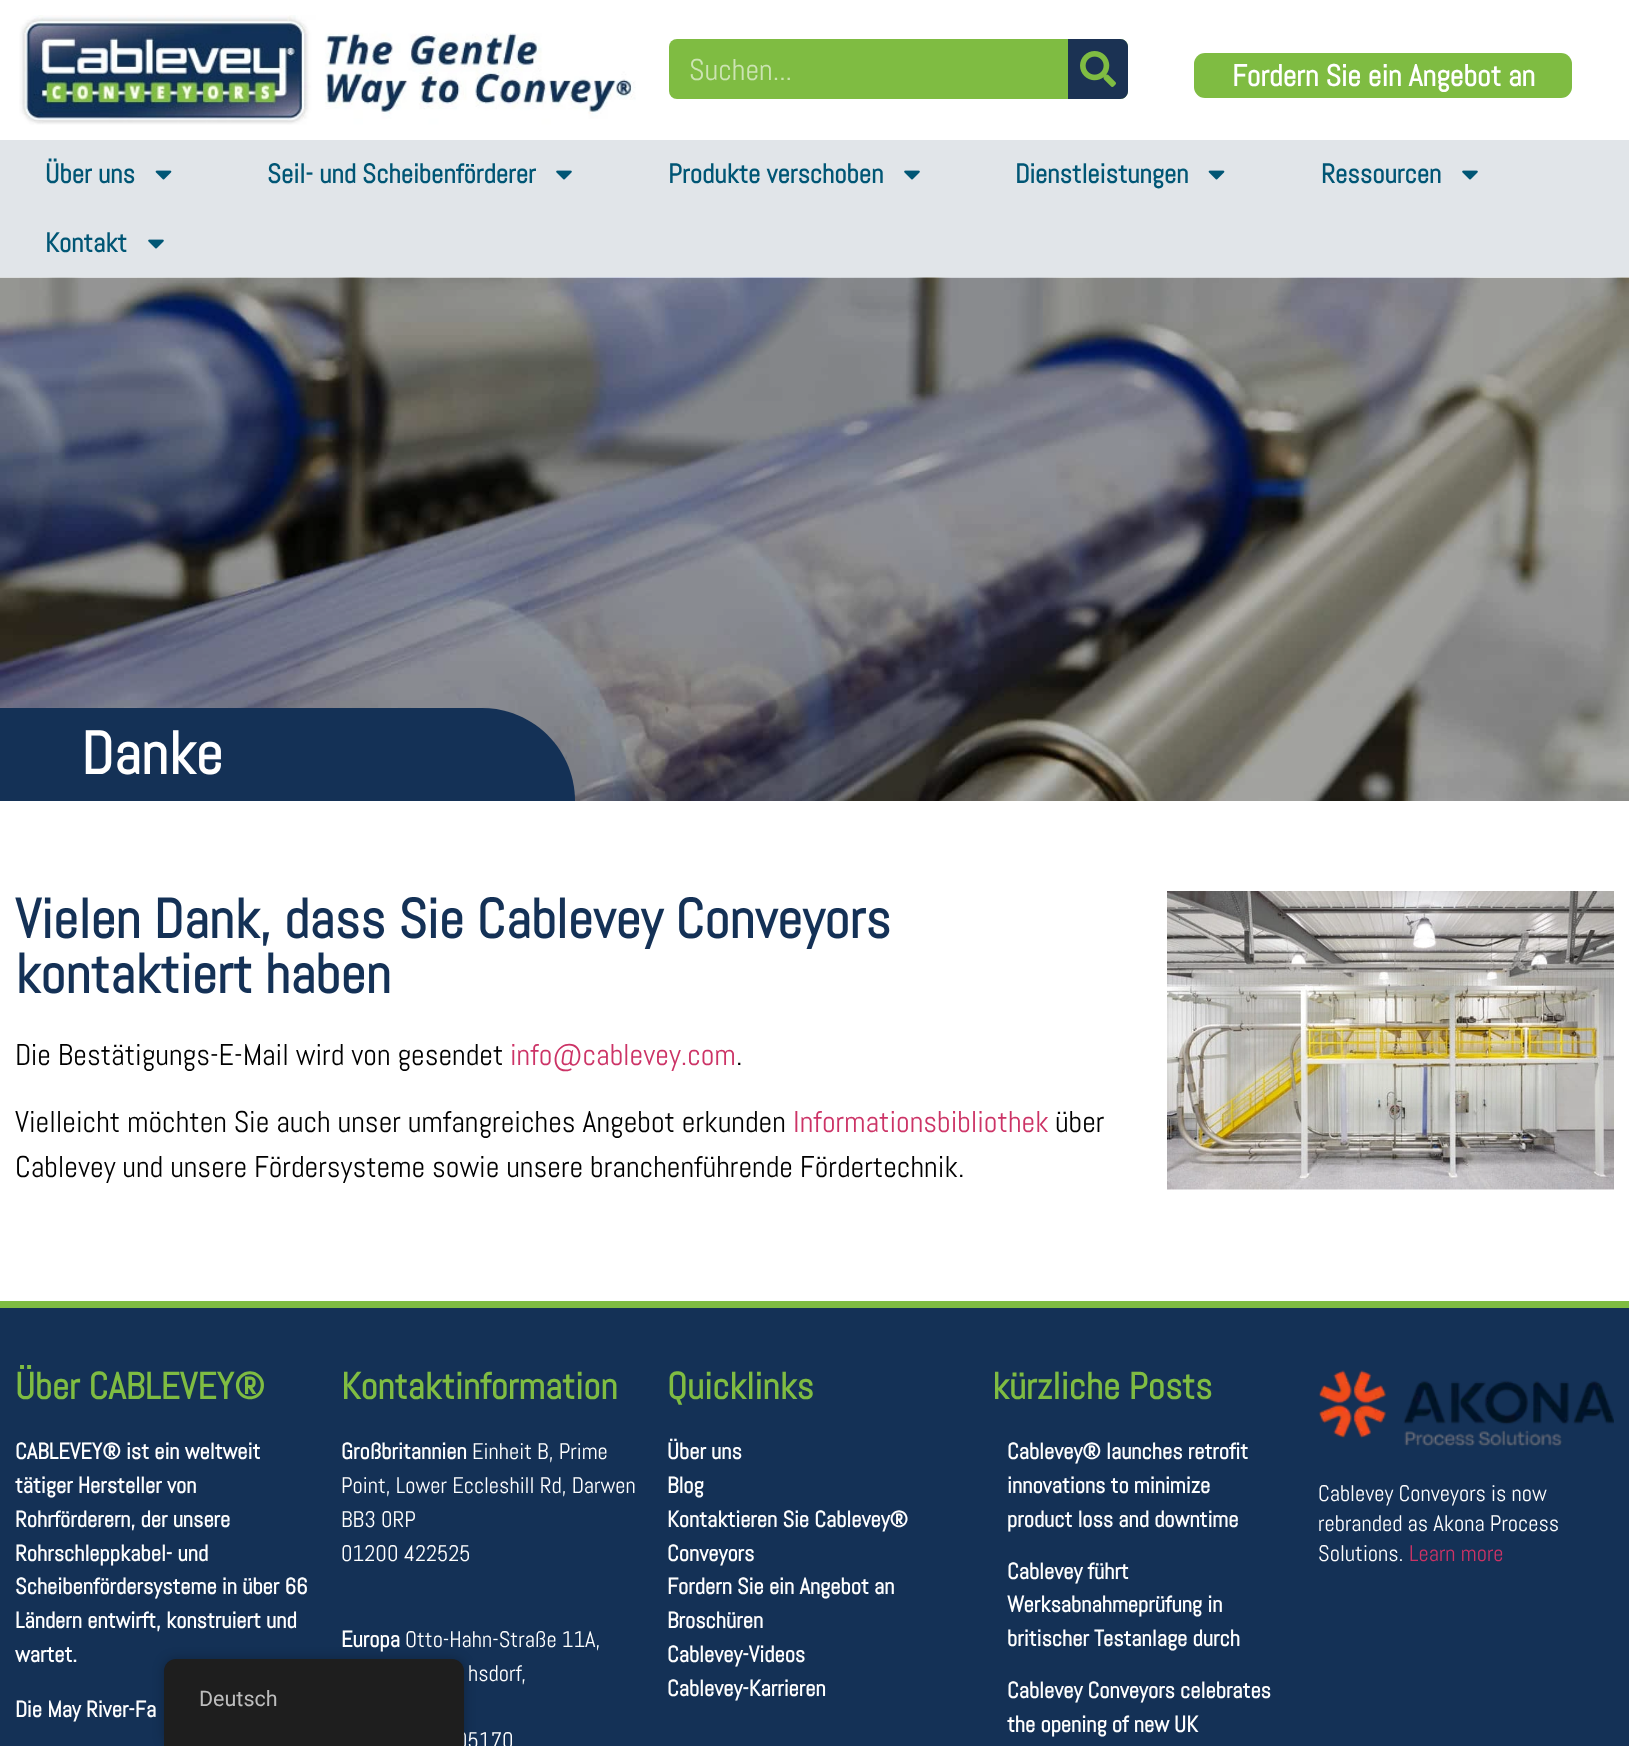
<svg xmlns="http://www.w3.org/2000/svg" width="1629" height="1746">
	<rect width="100%" height="100%" fill="#FFFFFF" />
	<image x="19" y="15" width="617" height="110" href="assets/img1.png" />
	<rect x="669" y="39" width="459" height="60" rx="8" fill="#7FBC42" />
	<text x="689" y="80" font-family="Abel" font-size="30" fill="#CCE4B3">Suchen...</text>
	<path d="M1068 39H1120C1124.5 39 1128 42.5 1128 47V91C1128 95.5 1124.5 99 1120 99H1068Z" fill="#1B3253" />
	<image x="1080" y="51" width="36" height="36" href="assets/img2.png" />
	<rect x="1194" y="53" width="378" height="45" rx="11" fill="#7FBC42" />
	<text x="1232" y="86" font-family="Abel" font-size="30" font-weight="700" fill="#FFFFFF">Fordern Sie ein Angebot an</text>
	<rect x="0" y="140" width="1629" height="138" fill="#E1E5E9" />
	<text x="45" y="183" font-family="Abel" font-size="27" font-weight="700" fill="#005675">Über uns</text>
	<image x="155" y="170" width="17" height="10" href="assets/img3.png" />
	<text x="267" y="183" font-family="Abel" font-size="27" font-weight="700" fill="#005675">Seil- und Scheibenförderer</text>
	<image x="556" y="170" width="16" height="10" href="assets/img4.png" />
	<text x="668" y="183" font-family="Abel" font-size="27" font-weight="700" fill="#005675">Produkte verschoben</text>
	<image x="904" y="170" width="16" height="10" href="assets/img4.png" />
	<text x="1015" y="183" font-family="Abel" font-size="27" font-weight="700" fill="#005675">Dienstleistungen</text>
	<image x="1208" y="170" width="17" height="10" href="assets/img3.png" />
	<text x="1321" y="183" font-family="Abel" font-size="27" font-weight="700" fill="#005675">Ressourcen</text>
	<image x="1462" y="170" width="16" height="10" href="assets/img4.png" />
	<text x="45" y="252" font-family="Abel" font-size="27" font-weight="700" fill="#005675">Kontakt</text>
	<image x="148" y="239" width="16" height="10" href="assets/img4.png" />
	<image x="0" y="277" width="1629" height="524" href="assets/img5.png" />
	<path d="M0 708H482C533.5 708 575 749.5 575 801H0Z" fill="#143156" />
	<text x="81" y="774" font-family="Abel" font-size="60" font-weight="700" fill="#FFFFFF">Danke</text>
	<g font-family="Abel" font-size="55.5" font-weight="700" fill="#143156">
		<text x="15" y="938">Vielen Dank, dass Sie Cablevey Conveyors</text>
		<text x="15" y="993">kontaktiert haben</text>
	</g>
	<text x="15" y="1065" font-family="Abel" font-size="30" fill="#000000">Die Bestätigungs-E-Mail wird von gesendet</text>
	<text x="510" y="1065" font-family="Abel" font-size="30" fill="#CC3366">info@cablevey.com</text>
	<g font-family="Abel" font-size="30" fill="#000000">
		<text x="736" y="1065">.</text>
		<text x="15" y="1132">Vielleicht möchten Sie auch unser umfangreiches Angebot erkunden</text>
	</g>
	<text x="793" y="1132" font-family="Abel" font-size="30" fill="#CC3366">Informationsbibliothek</text>
	<g font-family="Abel" font-size="30" fill="#000000">
		<text x="1055" y="1132">über</text>
		<text x="15" y="1177">Cablevey und unsere Fördersysteme sowie unsere branchenführende Fördertechnik.</text>
	</g>
	<image x="1167" y="891" width="447" height="299" href="assets/img6.png" />
	<rect x="0" y="1308" width="1629" height="438" fill="#143156" />
	<rect x="0" y="1301" width="1629" height="7" fill="#7FBC42" />
	<text x="15" y="1399" font-family="Abel" font-size="37.5" font-weight="700" fill="#7FBC42">Über CABLEVEY®</text>
	<g font-family="Abel" font-size="22.5" font-weight="700" fill="#FFFFFF">
		<text x="15" y="1459">CABLEVEY® ist ein weltweit</text>
		<text x="15" y="1493">tätiger Hersteller von</text>
		<text x="15" y="1527">Rohrförderern, der unsere</text>
		<text x="15" y="1561">Rohrschleppkabel- und</text>
		<text x="15" y="1594">Scheibenfördersysteme in über 66</text>
		<text x="15" y="1628">Ländern entwirft, konstruiert und</text>
		<text x="15" y="1662">wartet.</text>
		<text x="15" y="1717">Die May River-Fa</text>
	</g>
	<text x="341" y="1399" font-family="Abel" font-size="37.5" font-weight="700" fill="#7FBC42">Kontaktinformation</text>
	<text x="341" y="1459" font-family="Abel" font-size="22.5" font-weight="700" fill="#FFFFFF">Großbritannien</text>
	<g font-family="Abel" font-size="22.5" fill="#FFFFFF">
		<text x="472" y="1459">Einheit B, Prime</text>
		<text x="341" y="1493">Point, Lower Eccleshill Rd, Darwen</text>
		<text x="341" y="1527">BB3 0RP</text>
		<text x="341" y="1561">01200 422525</text>
	</g>
	<text x="341" y="1647" font-family="Abel" font-size="22.5" font-weight="700" fill="#FFFFFF">Europa</text>
	<g font-family="Abel" font-size="22.5" fill="#FFFFFF">
		<text x="405" y="1647">Otto-Hahn-Straße 11A,</text>
		<text x="468" y="1681">hsdorf,</text>
		<text x="456" y="1748">05170</text>
	</g>
	<text x="667" y="1399" font-family="Abel" font-size="37.5" font-weight="700" fill="#7FBC42">Quicklinks</text>
	<g font-family="Abel" font-size="22.5" font-weight="700" fill="#FFFFFF">
		<text x="667" y="1459">Über uns</text>
		<text x="667" y="1493">Blog</text>
		<text x="667" y="1527">Kontaktieren Sie Cablevey®</text>
		<text x="667" y="1561">Conveyors</text>
		<text x="667" y="1594">Fordern Sie ein Angebot an</text>
		<text x="667" y="1628">Broschüren</text>
		<text x="667" y="1662">Cablevey-Videos</text>
		<text x="667" y="1696">Cablevey-Karrieren</text>
	</g>
	<text x="992" y="1399" font-family="Abel" font-size="37.5" font-weight="700" fill="#7FBC42">kürzliche Posts</text>
	<g font-family="Abel" font-size="22.5" font-weight="700" fill="#FFFFFF">
		<text x="1007" y="1459">Cablevey® launches retrofit</text>
		<text x="1007" y="1493">innovations to minimize</text>
		<text x="1007" y="1527">product loss and downtime</text>
		<text x="1007" y="1579">Cablevey führt</text>
		<text x="1007" y="1612">Werksabnahmeprüfung in</text>
		<text x="1007" y="1646">britischer Testanlage durch</text>
		<text x="1007" y="1698">Cablevey Conveyors celebrates</text>
		<text x="1007" y="1732">the opening of new UK</text>
	</g>
	<image x="1318" y="1370" width="296" height="77" href="assets/img7.png" />
	<g font-family="Abel" font-size="22.5" fill="#FFFFFF">
		<text x="1318" y="1501">Cablevey Conveyors is now</text>
		<text x="1318" y="1531">rebranded as Akona Process</text>
		<text x="1318" y="1561">Solutions.</text>
	</g>
	<text x="1409" y="1561" font-family="Abel" font-size="22.5" fill="#CC3366">Learn more</text>
	<rect x="164" y="1659" width="300" height="87" rx="12" fill="#000000" fill-opacity="0.25" filter="blur(6px)" />
	<path d="M176 1659H452C458.5 1659 464 1664.5 464 1671V1746H164V1671C164 1664.5 169.5 1659 176 1659Z" fill="#1E1E1E" />
	<text x="199" y="1706" font-family="Roboto" font-size="21.5" fill="#BDBDBD">Deutsch</text>
</svg>
